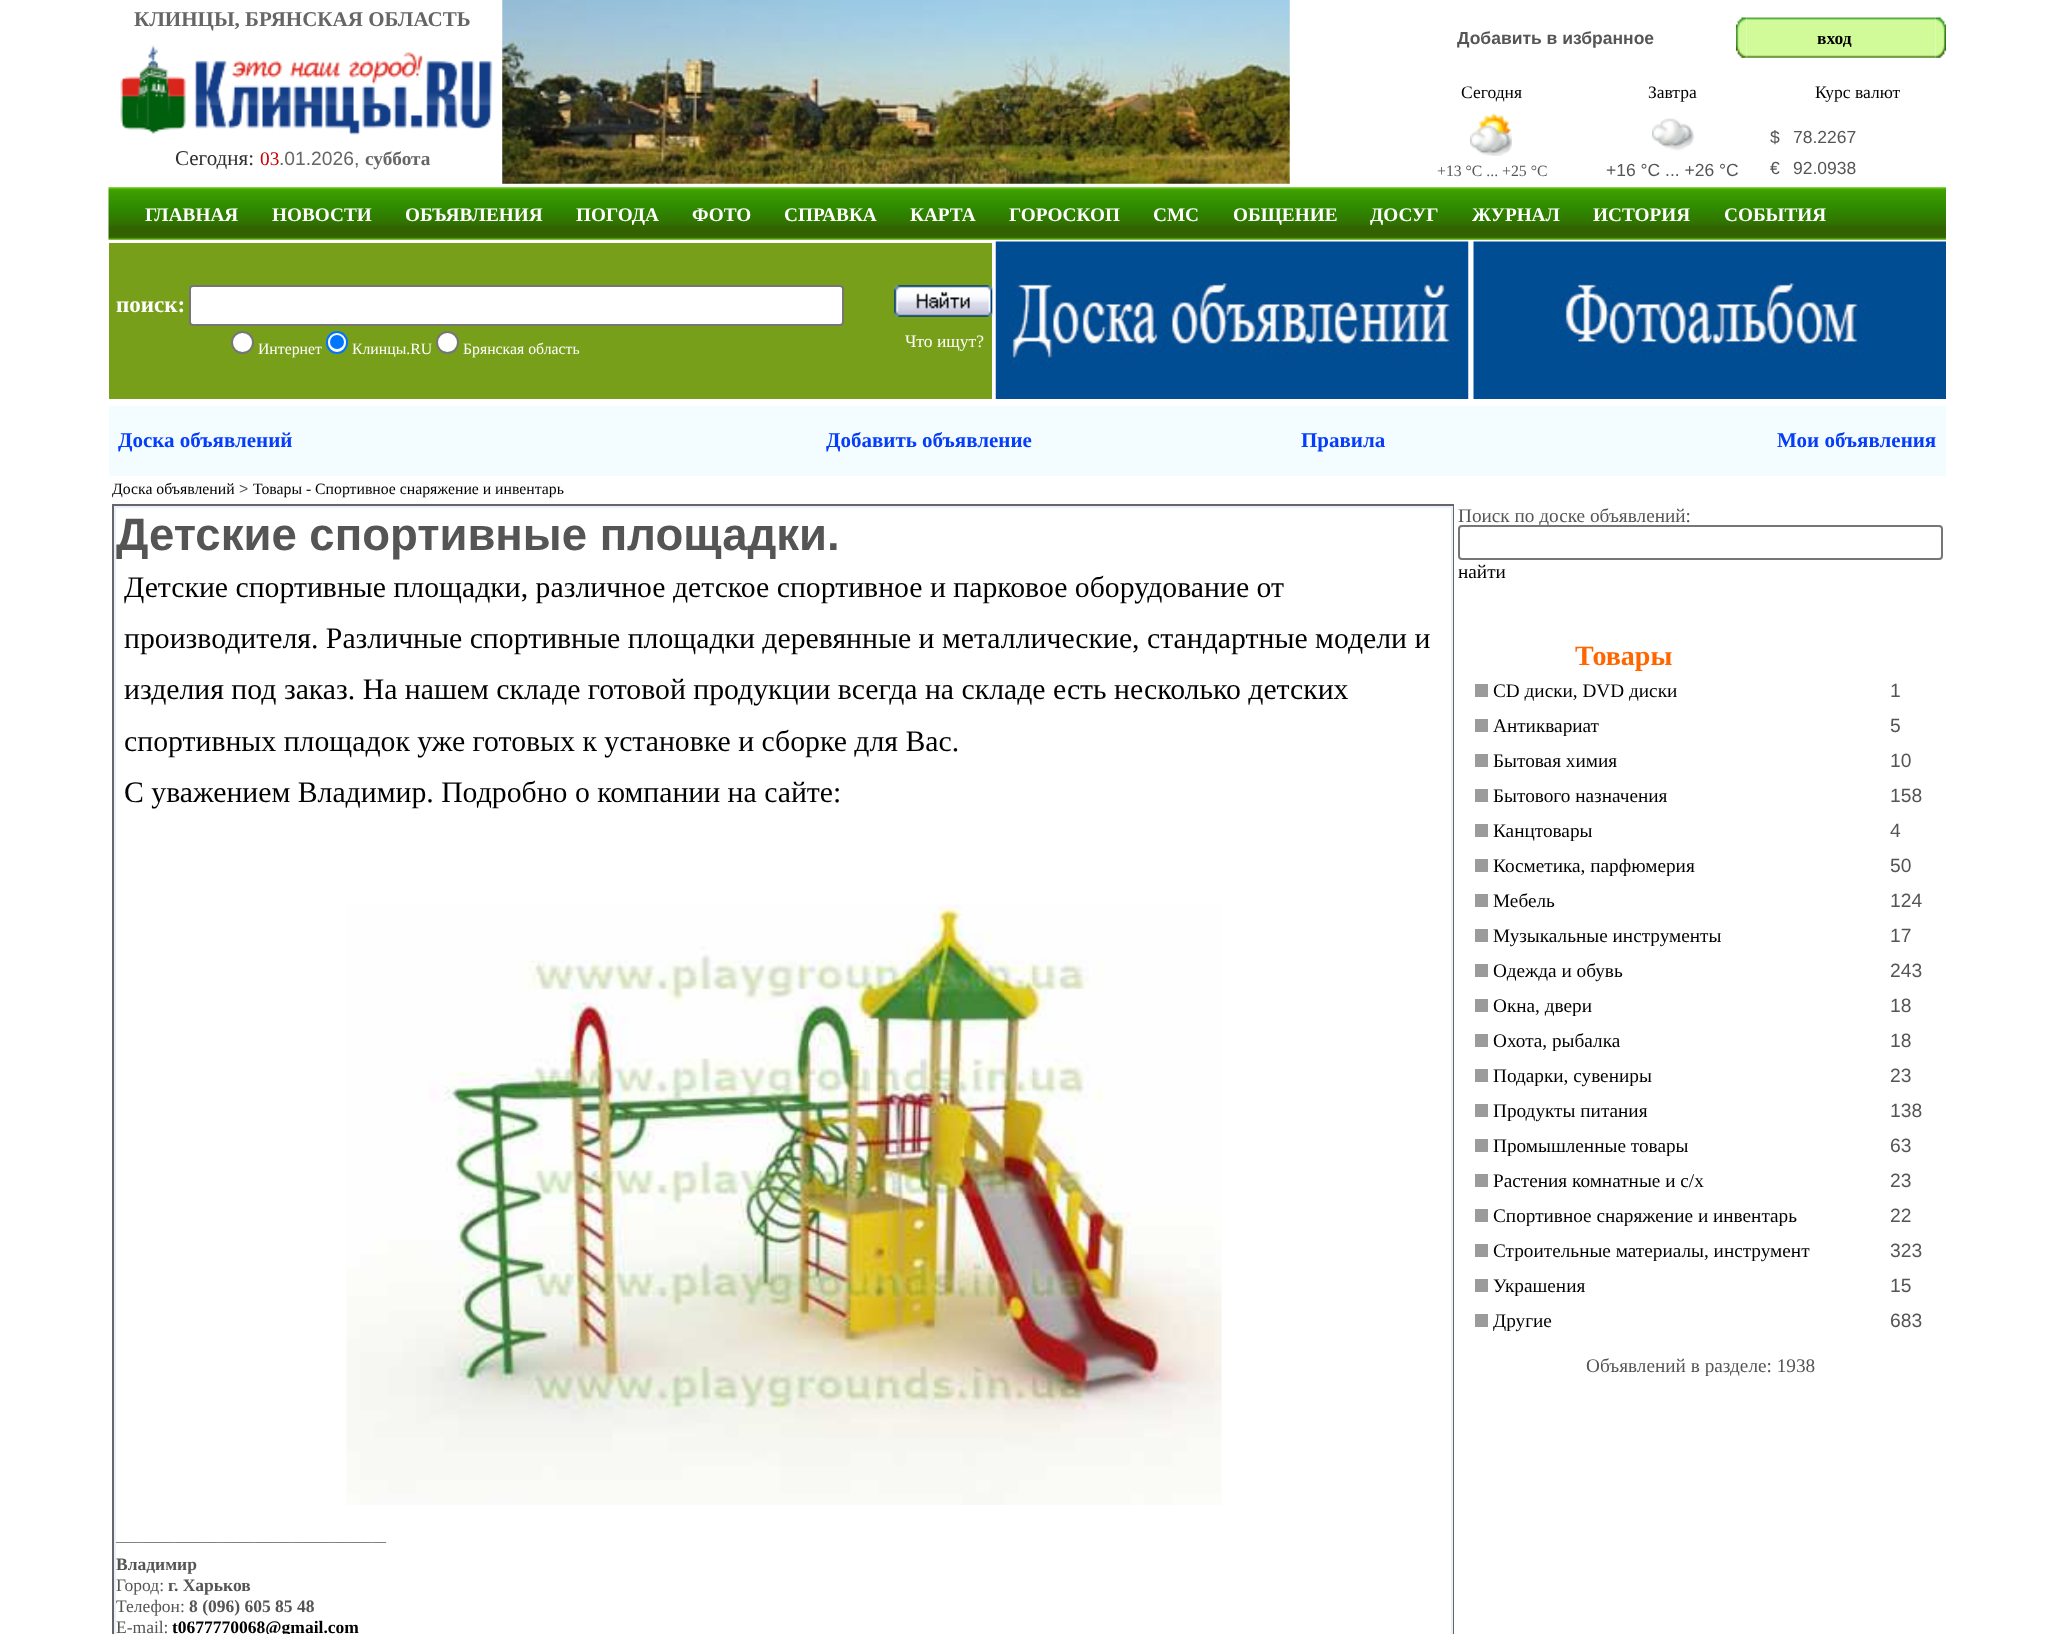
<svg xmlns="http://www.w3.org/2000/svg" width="2053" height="1634">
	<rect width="100%" height="100%" fill="#FFFFFF" />
	<text x="134" y="26" font-family="Liberation Serif" font-size="21" font-weight="700" fill="#666666">КЛИНЦЫ, БРЯНСКАЯ ОБЛАСТЬ</text>
	<image x="120" y="45" width="373" height="90" href="assets/img1.png" />
	<text x="175" y="165" font-family="Liberation Serif" font-size="21" fill="#2E2E2E">Сегодня:</text>
	<text x="260" y="165" font-family="Liberation Serif" font-size="19.25" fill="#CC0000">03</text>
	<text x="279" y="165" font-family="Liberation Sans" font-size="19.25" fill="#666666">.01.2026,</text>
	<text x="365" y="165" font-family="Liberation Serif" font-size="19.25" font-weight="700" fill="#666666">суббота</text>
	<image x="502" y="0" width="788" height="184" href="assets/img2.png" />
	<text x="1457" y="44" font-family="Liberation Sans" font-size="17.5" font-weight="700" fill="#555555">Добавить в избранное</text>
	<image x="1736" y="17" width="11" height="41" href="assets/img3.png" />
	<image x="1746" y="17" width="190" height="41" href="assets/img4.png" />
	<text x="1817" y="44" font-family="Liberation Serif" font-size="17.5" font-weight="700" fill="#000000">вход</text>
	<image x="1935" y="17" width="11" height="41" href="assets/img5.png" />
	<g font-family="Liberation Serif" font-size="17.5" fill="#000000">
		<text x="1461" y="98">Сегодня</text>
		<text x="1648" y="98">Завтра</text>
		<text x="1815" y="98">Курс валют</text>
	</g>
	<image x="1470" y="113" width="42" height="43" href="assets/img6.png" />
	<text x="1437" y="176" font-family="Liberation Serif" font-size="15.75" fill="#555555">+13 °C ... +25 °C</text>
	<image x="1652" y="118" width="42" height="33" href="assets/img7.png" />
	<g font-family="Liberation Sans" font-size="17.5" fill="#555555">
		<text x="1606" y="176">+16 °C ... +26 °C</text>
		<text x="1770" y="143">$</text>
		<text x="1793" y="143">78.2267</text>
		<text x="1770" y="174">€</text>
		<text x="1793" y="174">92.0938</text>
	</g>
	<image x="108" y="187" width="1838" height="53" href="assets/img8.png" />
	<g font-family="Liberation Serif" font-size="19.25" font-weight="700" fill="#FFFFFF">
		<text x="145" y="221">ГЛАВНАЯ</text>
		<text x="272" y="221">НОВОСТИ</text>
		<text x="405" y="221">ОБЪЯВЛЕНИЯ</text>
		<text x="576" y="221">ПОГОДА</text>
		<text x="692" y="221">ФОТО</text>
		<text x="784" y="221">СПРАВКА</text>
		<text x="910" y="221">КАРТА</text>
		<text x="1009" y="221">ГОРОСКОП</text>
		<text x="1153" y="221">СМС</text>
		<text x="1233" y="221">ОБЩЕНИЕ</text>
		<text x="1370" y="221">ДОСУГ</text>
		<text x="1472" y="221">ЖУРНАЛ</text>
		<text x="1593" y="221">ИСТОРИЯ</text>
		<text x="1724" y="221">СОБЫТИЯ</text>
	</g>
	<rect x="109" y="243" width="883" height="156" fill="#779F1A" />
	<text x="116" y="312" font-family="Liberation Serif" font-size="23" font-weight="700" fill="#FFFFFF">поиск:</text>
	<rect x="190" y="286" width="653" height="39" rx="3" fill="#FFFFFF" stroke="#767676" stroke-width="2" />
	<image x="894" y="285" width="99" height="32" href="assets/img9.png" />
	<circle cx="242.5" cy="342.5" r="10.5" fill="#FFFFFF" stroke="#767676" stroke-width="2" />
	<text x="258" y="354" font-family="Liberation Serif" font-size="15.75" fill="#FFFFFF">Интернет</text>
	<rect x="327" y="332" width="20" height="21" rx="10" fill="#FFFFFF" stroke="#0075FF" stroke-width="2" />
	<circle cx="337" cy="342" r="7" fill="#0075FF" />
	<text x="352" y="354" font-family="Liberation Serif" font-size="15.75" fill="#FFFFFF">Клинцы.RU</text>
	<circle cx="447.5" cy="342.5" r="10.5" fill="#FFFFFF" stroke="#767676" stroke-width="2" />
	<text x="463" y="354" font-family="Liberation Serif" font-size="15.75" fill="#FFFFFF">Брянская область</text>
	<text x="905" y="347" font-family="Liberation Serif" font-size="17.5" fill="#FFFFFF">Что ищут?</text>
	<image x="995" y="241" width="474" height="158" href="assets/img10.png" />
	<image x="1473" y="241" width="473" height="158" href="assets/img11.png" />
	<rect x="109" y="406" width="1837" height="70" fill="#F3FCFE" />
	<g font-family="Liberation Serif" font-size="21" font-weight="700" fill="#053DFA">
		<text x="118" y="447">Доска объявлений</text>
		<text x="826" y="447">Добавить объявление</text>
		<text x="1301" y="447">Правила</text>
		<text x="1777" y="447">Мои объявления</text>
	</g>
	<text x="112" y="494" font-family="Liberation Serif" font-size="15.75" fill="#000000">Доска объявлений</text>
	<text x="239" y="494" font-family="Liberation Sans" font-size="15.75" fill="#555555">&gt;</text>
	<text x="253" y="494" font-family="Liberation Serif" font-size="15.75" fill="#000000">Товары - Спортивное снаряжение и инвентарь</text>
	<rect x="113" y="505" width="1340" height="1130" fill="none" stroke="#666666" stroke-width="2" />
	<rect x="115" y="507" width="1337" height="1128" fill="none" stroke="#E9EFFC" stroke-width="2" />
	<text x="116" y="550" font-family="Liberation Sans" font-size="45.5" font-weight="700" fill="#555555">Детские спортивные площадки.</text>
	<g font-family="Liberation Serif" font-size="29.75" fill="#000000">
		<text x="124" y="597">Детские спортивные площадки, различное детское спортивное и парковое оборудование от</text>
		<text x="124" y="648">производителя. Различные спортивные площадки деревянные и металлические, стандартные модели и</text>
		<text x="124" y="699">изделия под заказ. На нашем складе готовой продукции всегда на складе есть несколько детских</text>
		<text x="124" y="751">спортивных площадок уже готовых к установке и сборке для Вас.</text>
		<text x="124" y="802">С уважением Владимир. Подробно о компании на сайте:</text>
	</g>
	<image x="346" y="904" width="876" height="601" href="assets/img12.png" />
	<text x="116" y="1541" font-family="Liberation Serif" font-size="14.6" fill="#555555">_____________________________________</text>
	<text x="116" y="1570" font-family="Liberation Serif" font-size="17.5" font-weight="700" fill="#555555">Владимир</text>
	<text x="116" y="1591" font-family="Liberation Serif" font-size="17.5" fill="#555555">Город:</text>
	<text x="168" y="1591" font-family="Liberation Serif" font-size="17.5" font-weight="700" fill="#555555">г. Харьков</text>
	<text x="116" y="1612" font-family="Liberation Serif" font-size="17.5" fill="#555555">Телефон:</text>
	<text x="189" y="1612" font-family="Liberation Serif" font-size="17.5" font-weight="700" fill="#555555">8 (096) 605 85 48</text>
	<text x="116" y="1633" font-family="Liberation Serif" font-size="17.5" fill="#555555">E-mail:</text>
	<text x="172" y="1633" font-family="Liberation Serif" font-size="17.5" font-weight="700" fill="#000000">t0677770068@gmail.com</text>
	<text x="1458" y="522" font-family="Liberation Serif" font-size="19.25" fill="#555555">Поиск по доске объявлений:</text>
	<rect x="1459" y="526" width="483" height="33" rx="3" fill="#FFFFFF" stroke="#767676" stroke-width="2" />
	<text x="1458" y="578" font-family="Liberation Serif" font-size="19.25" fill="#000000">найти</text>
	<text x="1575" y="665" font-family="Liberation Serif" font-size="28" font-weight="700" fill="#FF6600">Товары</text>
	<rect x="1475" y="684" width="13" height="13" fill="#9B9B9B" />
	<text x="1493" y="697" font-family="Liberation Serif" font-size="19.25" fill="#000000">CD диски, DVD диски</text>
	<text x="1890" y="697" font-family="Liberation Sans" font-size="19.25" fill="#555555">1</text>
	<rect x="1475" y="719" width="13" height="13" fill="#9B9B9B" />
	<text x="1493" y="732" font-family="Liberation Serif" font-size="19.25" fill="#000000">Антиквариат</text>
	<text x="1890" y="732" font-family="Liberation Sans" font-size="19.25" fill="#555555">5</text>
	<rect x="1475" y="754" width="13" height="13" fill="#9B9B9B" />
	<text x="1493" y="767" font-family="Liberation Serif" font-size="19.25" fill="#000000">Бытовая химия</text>
	<text x="1890" y="767" font-family="Liberation Sans" font-size="19.25" fill="#555555">10</text>
	<rect x="1475" y="789" width="13" height="13" fill="#9B9B9B" />
	<text x="1493" y="802" font-family="Liberation Serif" font-size="19.25" fill="#000000">Бытового назначения</text>
	<text x="1890" y="802" font-family="Liberation Sans" font-size="19.25" fill="#555555">158</text>
	<rect x="1475" y="824" width="13" height="13" fill="#9B9B9B" />
	<text x="1493" y="837" font-family="Liberation Serif" font-size="19.25" fill="#000000">Канцтовары</text>
	<text x="1890" y="837" font-family="Liberation Sans" font-size="19.25" fill="#555555">4</text>
	<rect x="1475" y="859" width="13" height="13" fill="#9B9B9B" />
	<text x="1493" y="872" font-family="Liberation Serif" font-size="19.25" fill="#000000">Косметика, парфюмерия</text>
	<text x="1890" y="872" font-family="Liberation Sans" font-size="19.25" fill="#555555">50</text>
	<rect x="1475" y="894" width="13" height="13" fill="#9B9B9B" />
	<text x="1493" y="907" font-family="Liberation Serif" font-size="19.25" fill="#000000">Мебель</text>
	<text x="1890" y="907" font-family="Liberation Sans" font-size="19.25" fill="#555555">124</text>
	<rect x="1475" y="929" width="13" height="13" fill="#9B9B9B" />
	<text x="1493" y="942" font-family="Liberation Serif" font-size="19.25" fill="#000000">Музыкальные инструменты</text>
	<text x="1890" y="942" font-family="Liberation Sans" font-size="19.25" fill="#555555">17</text>
	<rect x="1475" y="964" width="13" height="13" fill="#9B9B9B" />
	<text x="1493" y="977" font-family="Liberation Serif" font-size="19.25" fill="#000000">Одежда и обувь</text>
	<text x="1890" y="977" font-family="Liberation Sans" font-size="19.25" fill="#555555">243</text>
	<rect x="1475" y="999" width="13" height="13" fill="#9B9B9B" />
	<text x="1493" y="1012" font-family="Liberation Serif" font-size="19.25" fill="#000000">Окна, двери</text>
	<text x="1890" y="1012" font-family="Liberation Sans" font-size="19.25" fill="#555555">18</text>
	<rect x="1475" y="1034" width="13" height="13" fill="#9B9B9B" />
	<text x="1493" y="1047" font-family="Liberation Serif" font-size="19.25" fill="#000000">Охота, рыбалка</text>
	<text x="1890" y="1047" font-family="Liberation Sans" font-size="19.25" fill="#555555">18</text>
	<rect x="1475" y="1069" width="13" height="13" fill="#9B9B9B" />
	<text x="1493" y="1082" font-family="Liberation Serif" font-size="19.25" fill="#000000">Подарки, сувениры</text>
	<text x="1890" y="1082" font-family="Liberation Sans" font-size="19.25" fill="#555555">23</text>
	<rect x="1475" y="1104" width="13" height="13" fill="#9B9B9B" />
	<text x="1493" y="1117" font-family="Liberation Serif" font-size="19.25" fill="#000000">Продукты питания</text>
	<text x="1890" y="1117" font-family="Liberation Sans" font-size="19.25" fill="#555555">138</text>
	<rect x="1475" y="1139" width="13" height="13" fill="#9B9B9B" />
	<text x="1493" y="1152" font-family="Liberation Serif" font-size="19.25" fill="#000000">Промышленные товары</text>
	<text x="1890" y="1152" font-family="Liberation Sans" font-size="19.25" fill="#555555">63</text>
	<rect x="1475" y="1174" width="13" height="13" fill="#9B9B9B" />
	<text x="1493" y="1187" font-family="Liberation Serif" font-size="19.25" fill="#000000">Растения комнатные и с/х</text>
	<text x="1890" y="1187" font-family="Liberation Sans" font-size="19.25" fill="#555555">23</text>
	<rect x="1475" y="1209" width="13" height="13" fill="#9B9B9B" />
	<text x="1493" y="1222" font-family="Liberation Serif" font-size="19.25" fill="#000000">Спортивное снаряжение и инвентарь</text>
	<text x="1890" y="1222" font-family="Liberation Sans" font-size="19.25" fill="#555555">22</text>
	<rect x="1475" y="1244" width="13" height="13" fill="#9B9B9B" />
	<text x="1493" y="1257" font-family="Liberation Serif" font-size="19.25" fill="#000000">Строительные материалы, инструмент</text>
	<text x="1890" y="1257" font-family="Liberation Sans" font-size="19.25" fill="#555555">323</text>
	<rect x="1475" y="1279" width="13" height="13" fill="#9B9B9B" />
	<text x="1493" y="1292" font-family="Liberation Serif" font-size="19.25" fill="#000000">Украшения</text>
	<text x="1890" y="1292" font-family="Liberation Sans" font-size="19.25" fill="#555555">15</text>
	<rect x="1475" y="1314" width="13" height="13" fill="#9B9B9B" />
	<text x="1493" y="1327" font-family="Liberation Serif" font-size="19.25" fill="#000000">Другие</text>
	<text x="1890" y="1327" font-family="Liberation Sans" font-size="19.25" fill="#555555">683</text>
	<text x="1586" y="1372" font-family="Liberation Serif" font-size="19.25" fill="#555555">Объявлений в разделе: 1938</text>
</svg>
